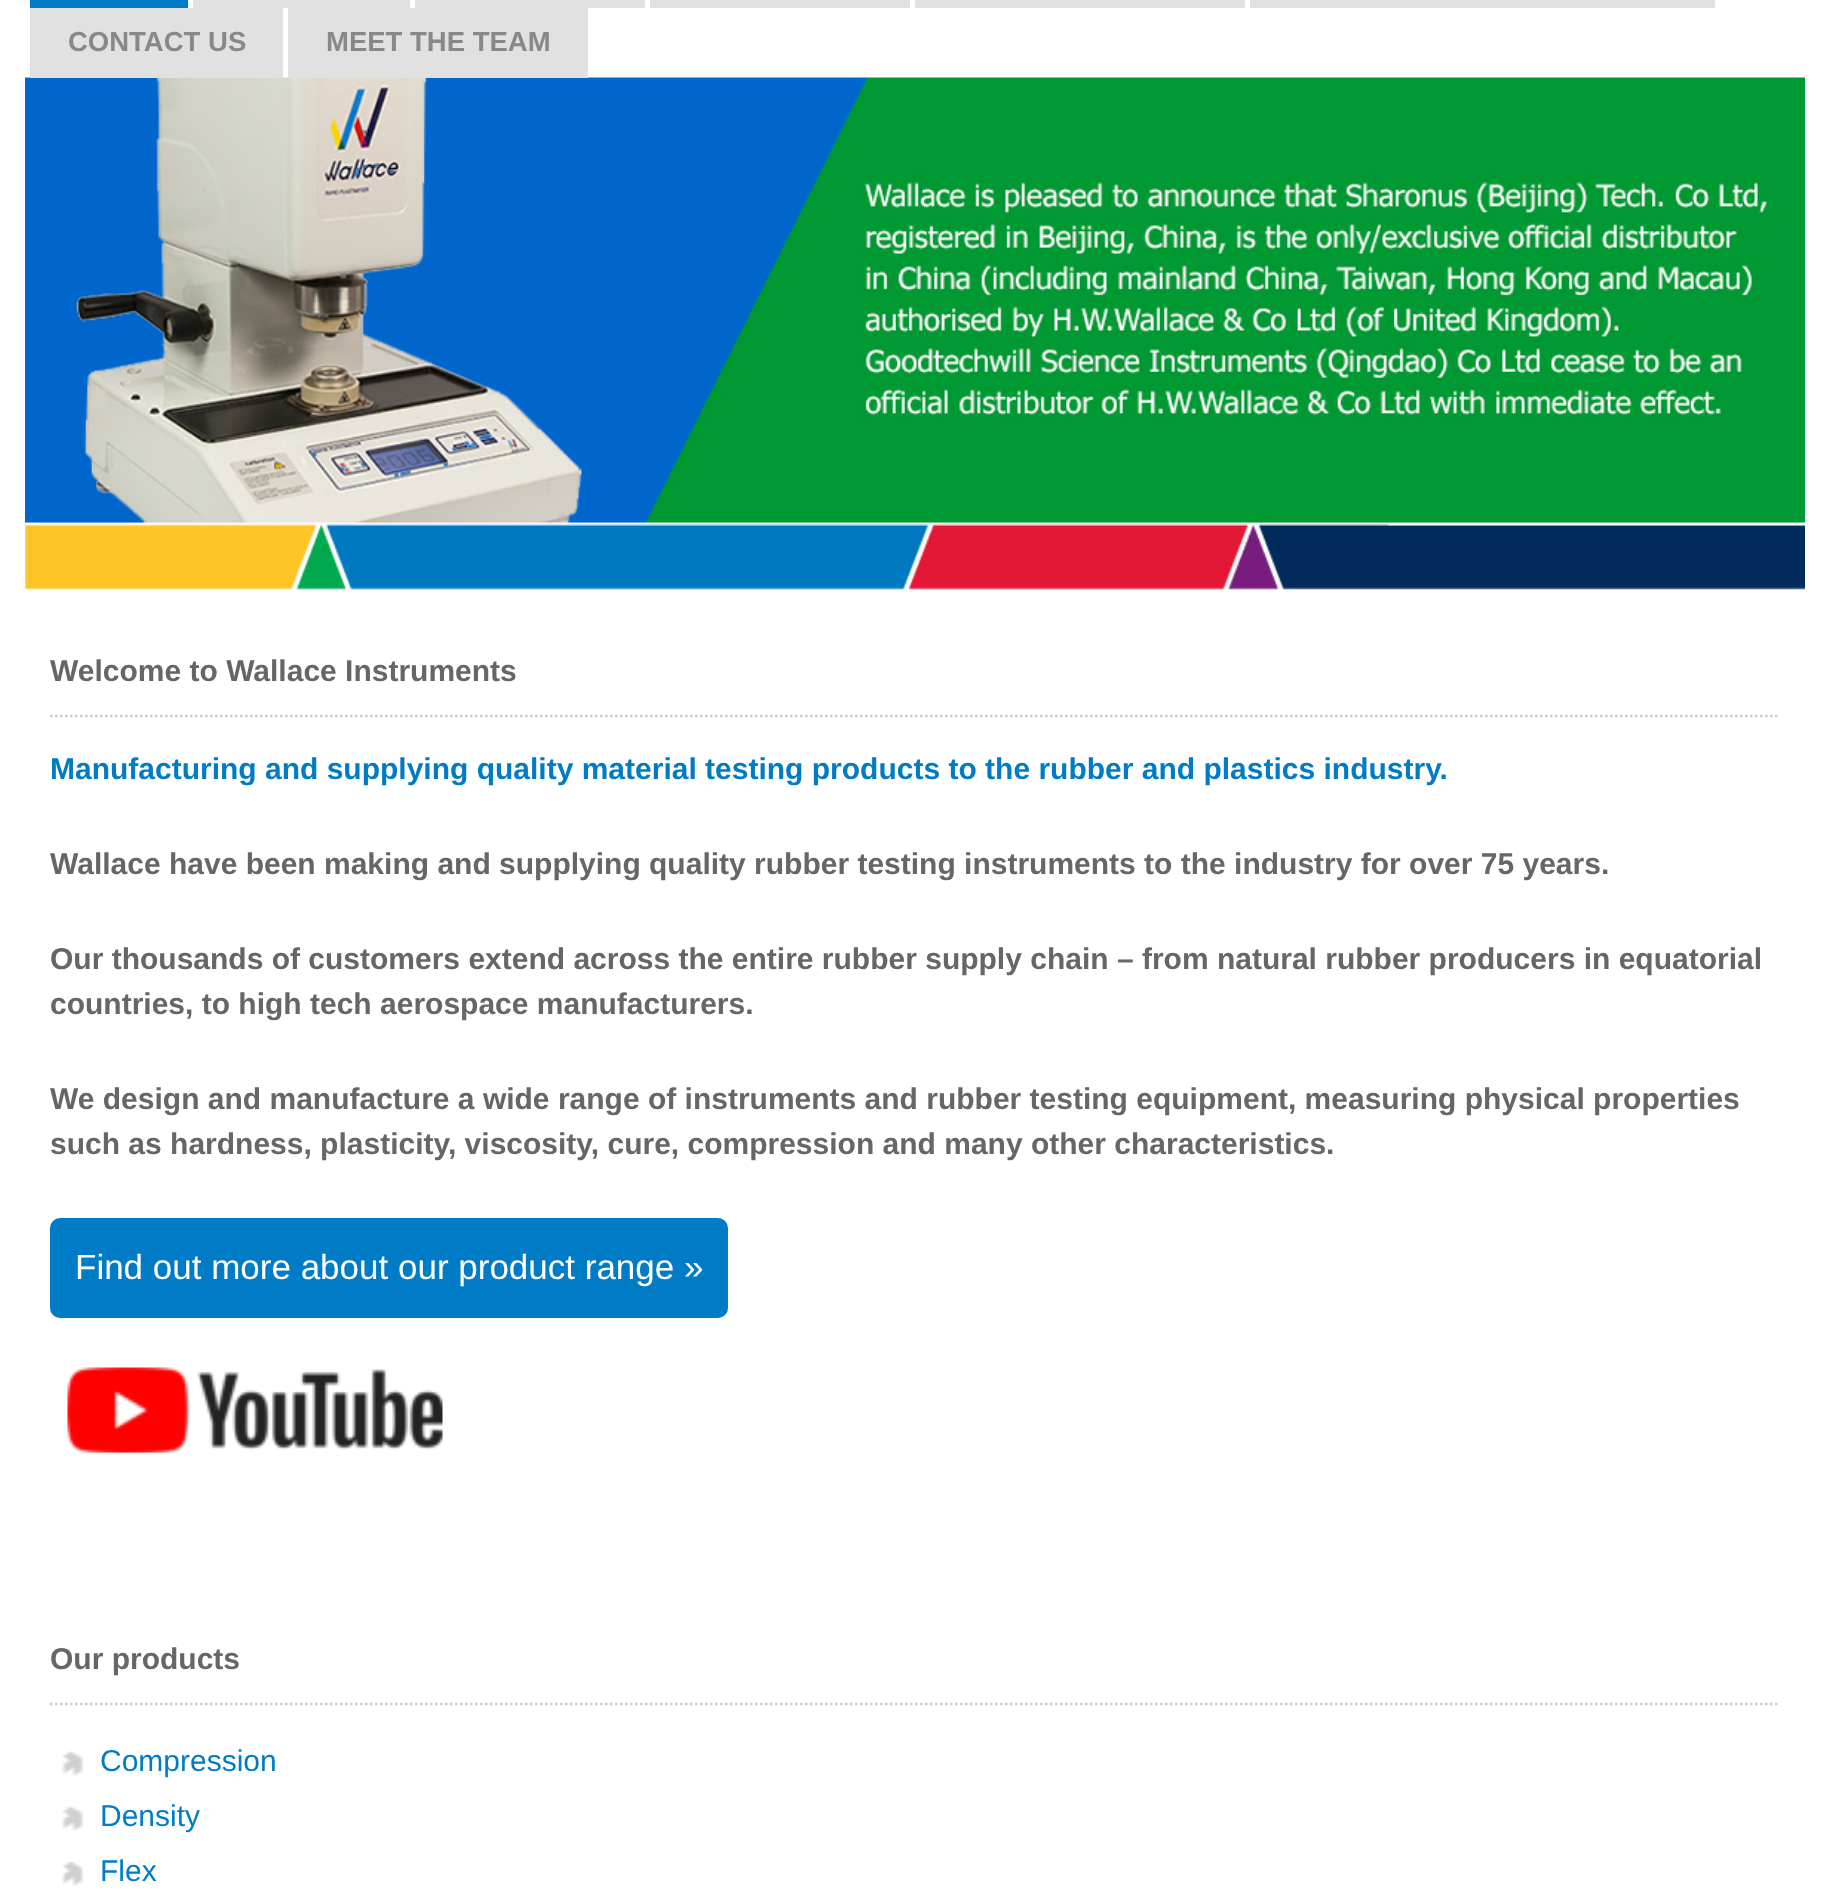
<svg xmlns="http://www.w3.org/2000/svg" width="1829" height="1896">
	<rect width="100%" height="100%" fill="#FFFFFF" />
	<rect x="30" y="0" width="158" height="8" fill="#007CC6" />
	<rect x="193" y="0" width="217" height="8" fill="#E1E1E1" />
	<rect x="415" y="0" width="230" height="8" fill="#E1E1E1" />
	<rect x="650" y="0" width="260" height="8" fill="#E1E1E1" />
	<rect x="915" y="0" width="330" height="8" fill="#E1E1E1" />
	<rect x="1250" y="0" width="465" height="8" fill="#E1E1E1" />
	<image x="25" y="77" width="1780" height="516" href="assets/img1.png" />
	<rect x="30" y="8" width="253" height="70" fill="#E1E1E1" />
	<text x="68" y="51" font-family="Liberation Sans" font-size="27.5" font-weight="700" fill="#888888">CONTACT US</text>
	<rect x="288" y="8" width="300" height="70" fill="#E1E1E1" />
	<text x="326" y="51" font-family="Liberation Sans" font-size="27.5" font-weight="700" fill="#888888">MEET THE TEAM</text>
	<path d="M50 716H1780" fill="none" stroke="#CCCCCC" stroke-width="2.5" stroke-dasharray="2.5 2.5" />
	<text x="50" y="681" font-family="Liberation Sans" font-size="30" font-weight="700" fill="#666666">Welcome to Wallace Instruments</text>
	<text x="50" y="779" font-family="Liberation Sans" font-size="30" font-weight="700" fill="#007CC6">Manufacturing and supplying quality material testing products to the rubber and plastics industry.</text>
	<g font-family="Liberation Sans" font-size="30" font-weight="700" fill="#666666">
		<text x="50" y="874">Wallace have been making and supplying quality rubber testing instruments to the industry for over 75 years.</text>
		<text x="50" y="969">Our thousands of customers extend across the entire rubber supply chain – from natural rubber producers in equatorial</text>
		<text x="50" y="1014">countries, to high tech aerospace manufacturers.</text>
		<text x="50" y="1109">We design and manufacture a wide range of instruments and rubber testing equipment, measuring physical properties</text>
		<text x="50" y="1154">such as hardness, plasticity, viscosity, cure, compression and many other characteristics.</text>
	</g>
	<rect x="50" y="1218" width="678" height="100" rx="10" fill="#007CC6" />
	<text x="75" y="1279" font-family="Liberation Sans" font-size="35" fill="#FFFFFF">Find out more about our product range »</text>
	<image x="67" y="1367" width="376" height="86" href="assets/img2.png" />
	<path d="M50 1704H1780" fill="none" stroke="#CCCCCC" stroke-width="2.5" stroke-dasharray="2.5 2.5" />
	<text x="50" y="1669" font-family="Liberation Sans" font-size="30" font-weight="700" fill="#666666">Our products</text>
	<image x="62" y="1750" width="22" height="26" href="assets/img3.png" />
	<text x="100" y="1771" font-family="Liberation Sans" font-size="30" fill="#007CC6">Compression</text>
	<image x="62" y="1805" width="22" height="26" href="assets/img3.png" />
	<text x="100" y="1826" font-family="Liberation Sans" font-size="30" fill="#007CC6">Density</text>
	<image x="62" y="1860" width="22" height="26" href="assets/img3.png" />
	<text x="100" y="1881" font-family="Liberation Sans" font-size="30" fill="#007CC6">Flex</text>
</svg>
